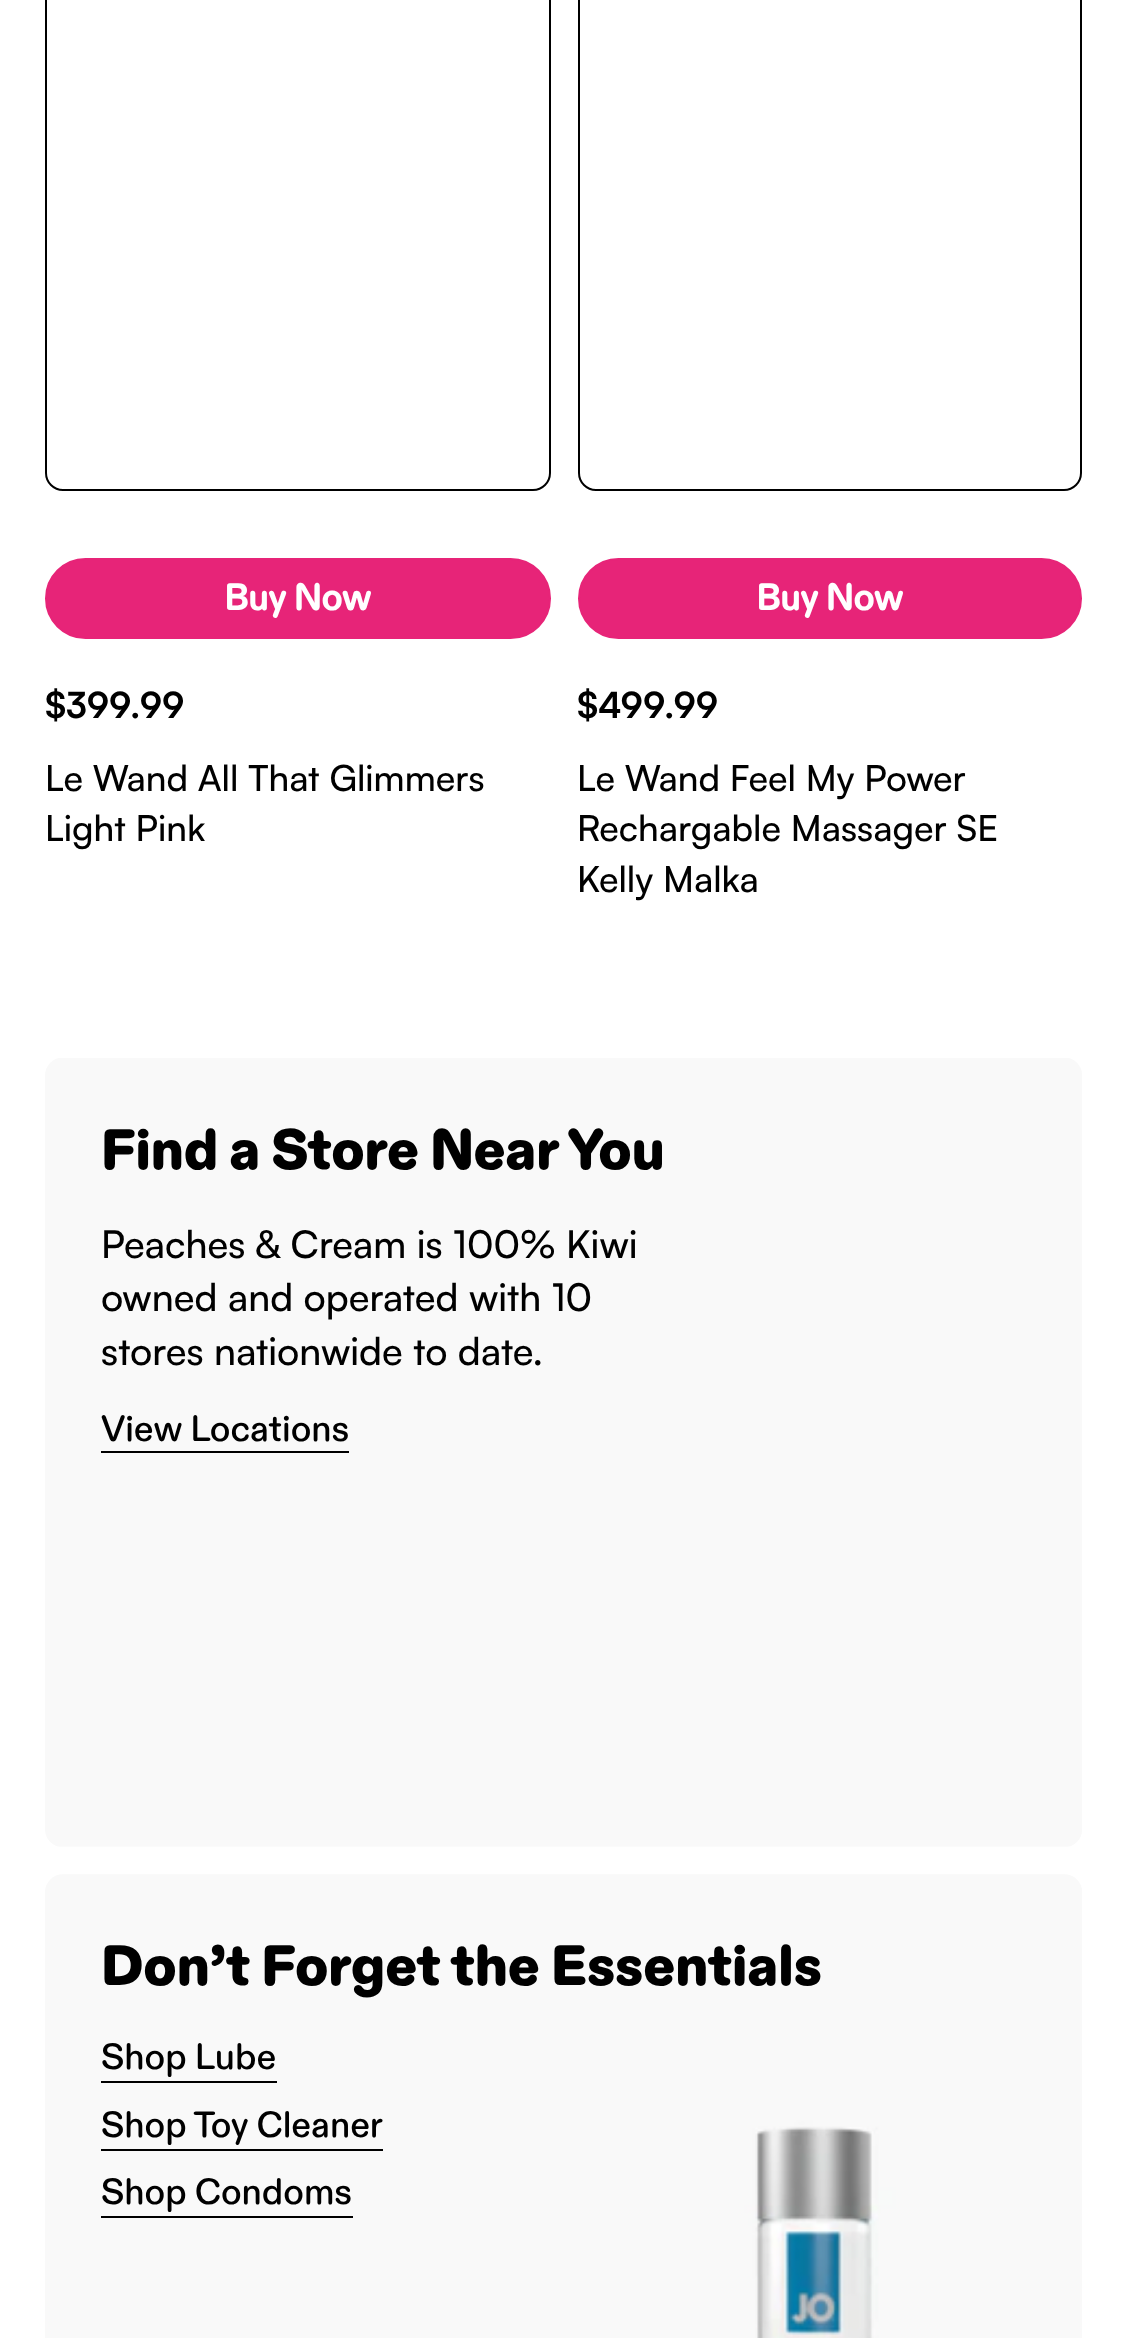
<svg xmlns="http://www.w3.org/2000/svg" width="1126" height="2338">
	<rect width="100%" height="100%" fill="#FFFFFF" />
	<rect x="46" y="-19" width="504" height="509" rx="17" fill="none" stroke="#000000" stroke-width="2" />
	<rect x="46" y="559" width="504" height="79" rx="39.5" fill="#E72478" stroke="#E72478" stroke-width="2" />
	<text x="224" y="610" font-family="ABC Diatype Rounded" font-size="40.5" font-weight="700" fill="#FFFFFF">Buy Now</text>
	<text x="45" y="718" font-family="Satoshi" font-size="36" font-weight="700" fill="#000000">$399.99</text>
	<g font-family="Satoshi" font-size="36" font-weight="500" fill="#000000">
		<text x="45" y="791">Le Wand All That Glimmers</text>
		<text x="45" y="841">Light Pink</text>
	</g>
	<rect x="579" y="-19" width="502" height="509" rx="17" fill="none" stroke="#000000" stroke-width="2" />
	<rect x="579" y="559" width="502" height="79" rx="39.5" fill="#E72478" stroke="#E72478" stroke-width="2" />
	<text x="756" y="610" font-family="ABC Diatype Rounded" font-size="40.5" font-weight="700" fill="#FFFFFF">Buy Now</text>
	<text x="577" y="718" font-family="Satoshi" font-size="36" font-weight="700" fill="#000000">$499.99</text>
	<g font-family="Satoshi" font-size="36" font-weight="500" fill="#000000">
		<text x="577" y="791">Le Wand Feel My Power</text>
		<text x="577" y="841">Rechargable Massager SE</text>
		<text x="577" y="892">Kelly Malka</text>
	</g>
	<image x="45" y="1058" width="1037" height="789" href="assets/img1.png" />
	<text x="101" y="1169" font-family="ABC Diatype Rounded" font-size="63" font-weight="900" fill="#000000">Find a Store Near You</text>
	<g font-family="Satoshi" font-size="38.25" font-weight="500" fill="#000000">
		<text x="101" y="1258">Peaches &amp; Cream is 100% Kiwi</text>
		<text x="101" y="1311">owned and operated with 10</text>
		<text x="101" y="1365">stores nationwide to date.</text>
	</g>
	<rect x="101" y="1451" width="248" height="2" fill="#000000" />
	<text x="101" y="1441" font-family="ABC Diatype Rounded" font-size="40.5" font-weight="500" fill="#000000">View Locations</text>
	<image x="45" y="1874" width="1037" height="464" href="assets/img2.png" />
	<text x="101" y="1985" font-family="ABC Diatype Rounded" font-size="63" font-weight="900" fill="#000000">Don’t Forget the Essentials</text>
	<rect x="101" y="2081" width="176" height="2" fill="#000000" />
	<text x="101" y="2069" font-family="ABC Diatype Rounded" font-size="40.5" font-weight="500" fill="#000000">Shop Lube</text>
	<rect x="101" y="2149" width="282" height="2" fill="#000000" />
	<text x="101" y="2137" font-family="ABC Diatype Rounded" font-size="40.5" font-weight="500" fill="#000000">Shop Toy Cleaner</text>
	<rect x="101" y="2216" width="252" height="2" fill="#000000" />
	<text x="101" y="2204" font-family="ABC Diatype Rounded" font-size="40.5" font-weight="500" fill="#000000">Shop Condoms</text>
</svg>
